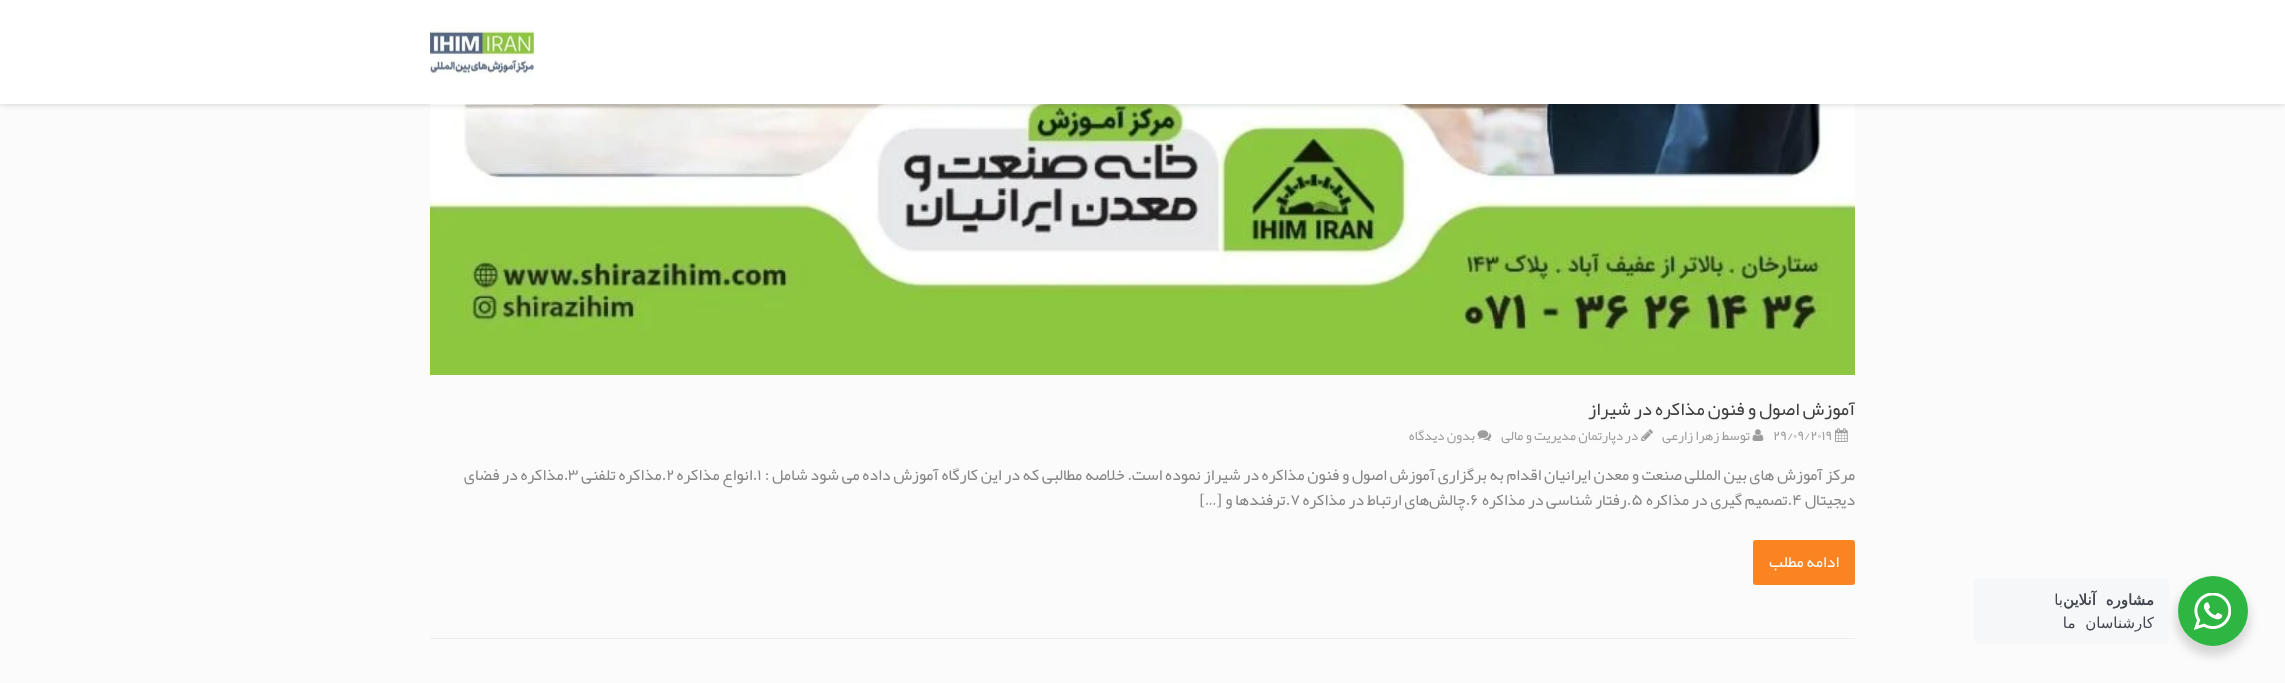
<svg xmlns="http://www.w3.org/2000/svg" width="2285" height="683">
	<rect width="100%" height="100%" fill="#FBFBFB" />
	<image x="430" y="104" width="1425" height="271" href="assets/img2.png" />
	<rect x="0" y="0" width="2285" height="104" fill="#000000" fill-opacity="0.19" filter="blur(3px)" />
	<rect x="0" y="0" width="2285" height="104" fill="#FFFFFF" />
	<image x="430" y="27" width="104" height="78" href="assets/img1.png" />
	<rect x="430" y="638" width="1425" height="1" fill="#EEEEEE" />
	<text x="1855" y="415" font-family="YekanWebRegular" font-size="18.75" direction="rtl" fill="#404040">آموزش اصول و فنون مذاکره در شیراز</text>
	<image x="1835" y="428" width="13" height="14" href="assets/img3.png" />
	<text x="1773" y="440" font-family="YekanWebRegular" font-size="13.75" fill="#9D9D9D">29/09/2019</text>
	<image x="1752" y="429" width="12" height="12" href="assets/img4.png" />
	<g font-family="YekanWebRegular" font-size="13.75" direction="rtl" fill="#9D9D9D">
		<text x="1750" y="440">توسط</text>
		<text x="1719" y="440">زهرا زارعی</text>
	</g>
	<image x="1641" y="429" width="12" height="12" href="assets/img5.png" />
	<g font-family="YekanWebRegular" font-size="13.75" direction="rtl" fill="#9D9D9D">
		<text x="1638" y="440">در</text>
		<text x="1623" y="440">دپارتمان مدیریت و مالی</text>
	</g>
	<image x="1477" y="430" width="15" height="11" href="assets/img6.png" />
	<text x="1475" y="440" font-family="YekanWebRegular" font-size="13.75" direction="rtl" fill="#9D9D9D">بدون دیدگاه</text>
	<text x="1855" y="480" font-family="YekanWebRegular" font-size="16.25" direction="rtl" fill="#868686">مرکز آموزش های بین المللی صنعت و معدن ایرانیان اقدام به برگزاری آموزش اصول و فنون مذاکره در شیراز نموده است. خلاصه مطالبی که در این کارگاه آموزش داده می شود شامل :</text>
	<text x="757" y="480" font-family="YekanWebRegular" font-size="16.25" fill="#868686">1</text>
	<text x="757" y="480" font-family="YekanWebRegular" font-size="16.25" direction="rtl" fill="#868686">.انواع مذاکره</text>
	<text x="666" y="480" font-family="YekanWebRegular" font-size="16.25" fill="#868686">2</text>
	<text x="666" y="480" font-family="YekanWebRegular" font-size="16.25" direction="rtl" fill="#868686">.مذاکره تلفنی</text>
	<text x="568" y="480" font-family="YekanWebRegular" font-size="16.25" fill="#868686">3</text>
	<g font-family="YekanWebRegular" font-size="16.25" direction="rtl" fill="#868686">
		<text x="568" y="480">.مذاکره در فضای</text>
		<text x="1855" y="505">دیجیتال</text>
	</g>
	<text x="1792" y="505" font-family="YekanWebRegular" font-size="16.25" fill="#868686">4</text>
	<text x="1792" y="505" font-family="YekanWebRegular" font-size="16.25" direction="rtl" fill="#868686">.تصمیم گیری در مذاکره</text>
	<text x="1631" y="505" font-family="YekanWebRegular" font-size="16.25" fill="#868686">5</text>
	<text x="1631" y="505" font-family="YekanWebRegular" font-size="16.25" direction="rtl" fill="#868686">.رفتار شناسی در مذاکره</text>
	<text x="1470" y="505" font-family="YekanWebRegular" font-size="16.25" fill="#868686">6</text>
	<text x="1470" y="505" font-family="YekanWebRegular" font-size="16.25" direction="rtl" fill="#868686">.چالش‌های ارتباط در مذاکره</text>
	<text x="1290" y="505" font-family="YekanWebRegular" font-size="16.25" fill="#868686">7</text>
	<text x="1290" y="505" font-family="YekanWebRegular" font-size="16.25" direction="rtl" fill="#868686">.ترفندها و</text>
	<text x="1222" y="505" font-family="Liberation Serif" font-size="16.25" direction="rtl" fill="#868686">[</text>
	<text x="1217" y="505" font-family="YekanWebRegular" font-size="16.25" direction="rtl" fill="#868686">…</text>
	<text x="1205" y="505" font-family="Liberation Serif" font-size="16.25" direction="rtl" fill="#868686">]</text>
	<rect x="1753.5" y="540.5" width="101" height="44" rx="2" fill="#FA8322" stroke="#FA8322" />
	<text x="1839" y="567" font-family="YekanWebRegular" font-size="16.25" direction="rtl" fill="#FFFFFF">ادامه مطلب</text>
	<rect x="2175" y="581" width="75" height="75" rx="37.5" fill="#000000" fill-opacity="0.14" filter="blur(5px)" />
	<circle cx="2213" cy="611" r="35" fill="#2DB742" />
	<image x="2194" y="593" width="37" height="37" href="assets/img7.png" />
	<rect x="1974" y="579" width="195" height="65" rx="5" fill="#F5F7F9" />
	<text x="2154" y="605" word-spacing="5" font-family="DejaVu Sans" font-size="15" font-weight="700" letter-spacing="-0.5" direction="rtl" fill="#43474E">مشاوره آنلاین</text>
	<g font-family="DejaVu Sans" font-size="15" letter-spacing="-0.5" direction="rtl" fill="#43474E">
		<text x="2063" y="605">با</text>
		<text x="2154" y="628" word-spacing="5">کارشناسان ما</text>
	</g>
</svg>
